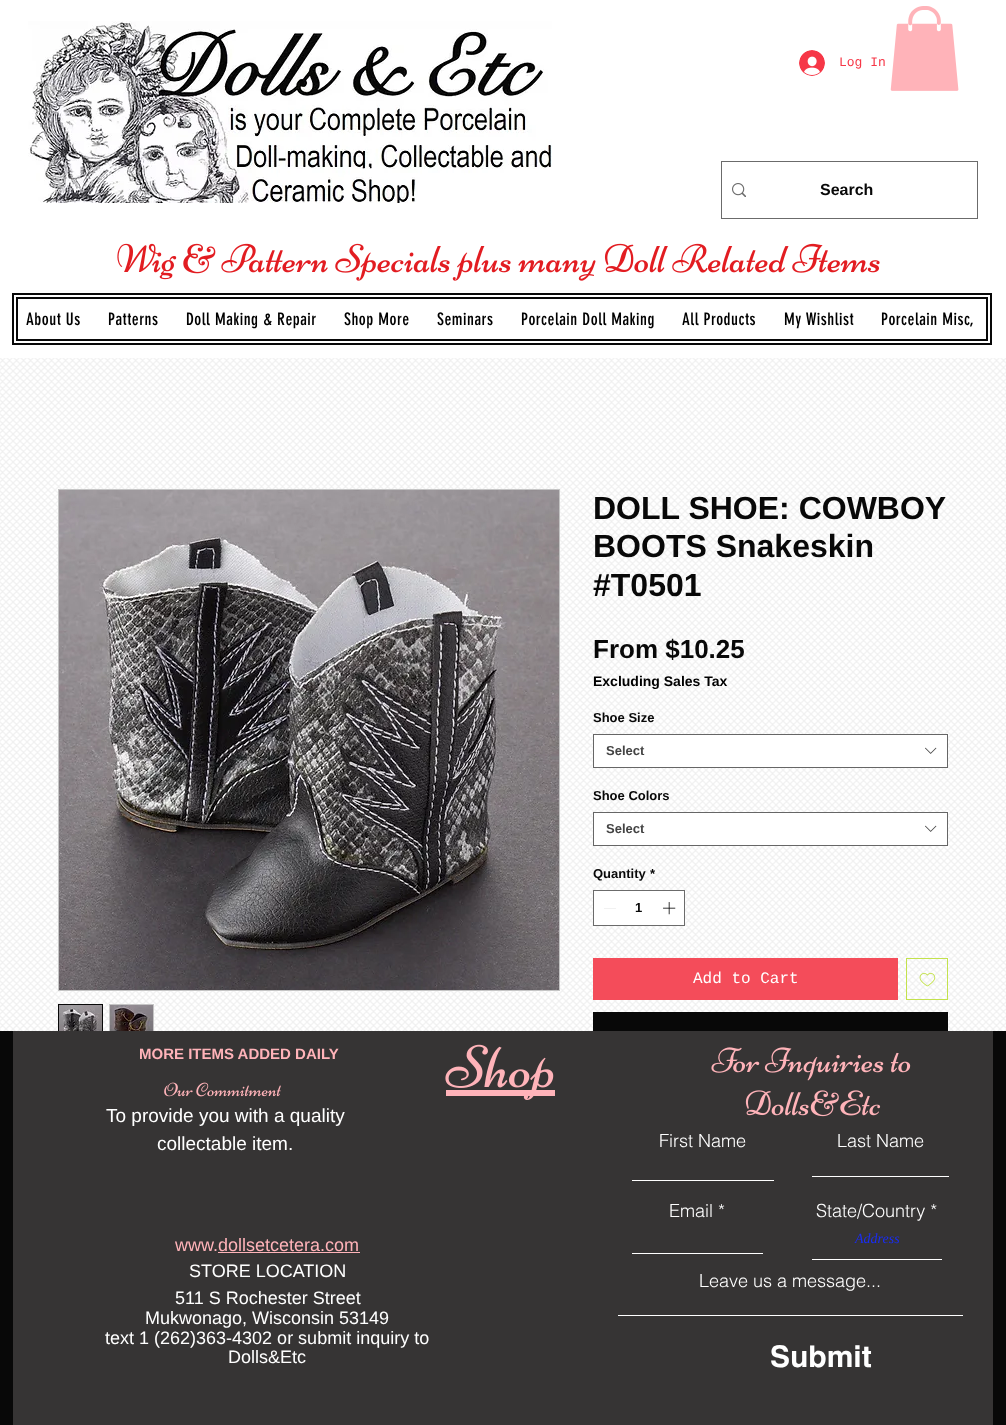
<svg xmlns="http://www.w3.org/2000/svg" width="1006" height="1425">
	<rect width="100%" height="100%" fill="#FFFFFF" />
	<image x="28" y="21" width="524" height="182" href="assets/img1.png" />
	<image x="799" y="50" width="26" height="26" href="assets/img2.png" />
	<text x="839" y="66" font-family="Liberation Mono" font-size="13" fill="#F63747">Log In</text>
	<image x="890" y="6" width="69" height="85" href="assets/img3.png" />
	<rect x="721.5" y="161.5" width="256" height="57" fill="none" stroke="#6B6B6B" />
	<image x="732" y="183" width="14" height="14" href="assets/img4.png" />
	<text x="820" y="195" font-family="Liberation Sans" font-size="16" font-weight="700" fill="#080808">Search</text>
	<image x="117" y="243" width="763" height="38" href="assets/img5.png" />
	<rect x="13" y="294" width="978" height="50" fill="none" stroke="#080808" stroke-width="2" />
	<rect x="17" y="298" width="970" height="42" fill="none" stroke="#080808" stroke-width="2" />
	<g font-family="'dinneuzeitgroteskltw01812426'" font-size="17" letter-spacing="0.5" fill="#000000">
		<text x="26" y="325">About Us</text>
		<text x="108" y="325">Patterns</text>
		<text x="186" y="325">Doll Making &amp; Repair</text>
		<text x="344" y="325">Shop More</text>
		<text x="437" y="325">Seminars</text>
		<text x="521" y="325">Porcelain Doll Making</text>
		<text x="682" y="325">All Products</text>
		<text x="784" y="325">My Wishlist</text>
		<text x="881" y="325">Porcelain Misc,</text>
	</g>
	<image x="0" y="358" width="1006" height="673" href="assets/img16.png" />
	<rect x="58.5" y="489.5" width="501" height="501" fill="none" stroke="#C5C5C5" />
	<image x="59" y="490" width="500" height="500" href="assets/img6.png" />
	<rect x="58.5" y="1004.5" width="44" height="44" fill="none" stroke="#080808" />
	<image x="59" y="1005" width="43" height="26" href="assets/img7.png" />
	<rect x="109.5" y="1004.5" width="44" height="44" fill="none" stroke="#C5C5C5" />
	<image x="110" y="1005" width="43" height="26" href="assets/img8.png" />
	<g font-family="Liberation Sans" font-size="32" font-weight="700" fill="#080808">
		<text x="593" y="519">DOLL SHOE: COWBOY</text>
		<text x="593" y="557">BOOTS Snakeskin</text>
		<text x="593" y="596">#T0501</text>
	</g>
	<text x="593" y="658" font-family="Liberation Sans" font-size="26" font-weight="700" fill="#080808">From $10.25</text>
	<text x="593" y="686" font-family="Liberation Sans" font-size="14" font-weight="700" fill="#000000">Excluding Sales Tax</text>
	<text x="593" y="722" font-family="Liberation Sans" font-size="13" font-weight="700" fill="#080808">Shoe Size</text>
	<rect x="593.5" y="734.5" width="354" height="33" fill="#FFFFFF" stroke="#666666" />
	<text x="606" y="755" font-family="Liberation Sans" font-size="13" font-weight="700" fill="#444444">Select</text>
	<image x="925" y="747" width="12" height="7" href="assets/img9.png" />
	<text x="593" y="800" font-family="Liberation Sans" font-size="13" font-weight="700" fill="#080808">Shoe Colors</text>
	<rect x="593.5" y="812.5" width="354" height="33" fill="#FFFFFF" stroke="#666666" />
	<text x="606" y="833" font-family="Liberation Sans" font-size="13" font-weight="700" fill="#444444">Select</text>
	<image x="925" y="825" width="12" height="7" href="assets/img9.png" />
	<g font-family="Liberation Sans" font-size="13" font-weight="700" fill="#080808">
		<text x="593" y="878">Quantity</text>
		<text x="650" y="878">*</text>
	</g>
	<rect x="593.5" y="890.5" width="91" height="35" fill="#FFFFFF" stroke="#6B6B6B" />
	<path d="M616 908V908.5H604V908Z" fill="#E3E3E3" fill-rule="evenodd" />
	<text x="635" y="912" font-family="Liberation Sans" font-size="13" font-weight="700" fill="#080808">1</text>
	<image x="663" y="902" width="13" height="13" href="assets/img10.png" />
	<rect x="593" y="958" width="305" height="42" fill="#F44C5A" />
	<text x="693" y="983" font-family="Liberation Mono" font-size="16" fill="#FFFFFF">Add to Cart</text>
	<rect x="906.5" y="958.5" width="41" height="41" fill="none" stroke="#C3E24C" />
	<image x="919" y="972" width="17" height="15" href="assets/img11.png" />
	<rect x="593" y="1012" width="355" height="19" fill="#080808" />
	<rect x="0" y="1031" width="1006" height="394" fill="#080808" />
	<rect x="13" y="1031" width="980" height="394" fill="#363434" />
	<text x="139" y="1059" font-family="Liberation Sans" font-size="15" font-weight="700" fill="#FFB3B9">MORE ITEMS ADDED DAILY</text>
	<rect x="446" y="1090" width="109" height="6" fill="#FFB3B9" />
	<image x="445" y="1044" width="109" height="56" href="assets/img12.png" />
	<image x="164" y="1082" width="117" height="15" href="assets/img13.png" />
	<g font-family="Liberation Sans" font-size="19" fill="#FFFFFF">
		<text x="106" y="1122">To provide you with a quality</text>
		<text x="157" y="1150">collectable item.</text>
	</g>
	<text x="175" y="1251" font-family="Liberation Sans" font-size="18" fill="#FFB3B9">www.dollsetcetera.com</text>
	<rect x="218" y="1252" width="142" height="1" fill="#FFB3B9" />
	<g font-family="Liberation Sans" font-size="18" fill="#FFFFFF">
		<text x="189" y="1277">STORE LOCATION</text>
		<text x="175" y="1304">511 S Rochester Street</text>
		<text x="145" y="1324">Mukwonago, Wisconsin 53149</text>
		<text x="105" y="1344">text 1 (262)363-4302 or submit inquiry to</text>
		<text x="228" y="1363">Dolls&amp;Etc</text>
	</g>
	<image x="711" y="1047" width="200" height="34" href="assets/img14.png" />
	<image x="745" y="1090" width="136" height="27" href="assets/img15.png" />
	<text x="659" y="1147" font-family="helvetica" font-size="18" font-weight="300" fill="#FFFFFF">First Name</text>
	<rect x="632" y="1180" width="142" height="1" fill="#FFFFFF" />
	<text x="837" y="1147" font-family="helvetica" font-size="18" font-weight="300" fill="#FFFFFF">Last Name</text>
	<rect x="812" y="1176" width="137" height="1" fill="#FFFFFF" />
	<text x="669" y="1217" font-family="helvetica" font-size="18" font-weight="300" fill="#FFFFFF">Email *</text>
	<rect x="632" y="1253" width="131" height="1" fill="#FFFFFF" />
	<text x="816" y="1217" font-family="helvetica" font-size="18" font-weight="300" fill="#FFFFFF">State/Country *</text>
	<rect x="812" y="1259" width="130" height="1" fill="#FFFFFF" />
	<text x="855" y="1243" font-family="Liberation Serif" font-size="14" font-style="italic" fill="#1A2DF3">Address</text>
	<text x="699" y="1287" font-family="helvetica" font-size="18" font-weight="300" fill="#FFFFFF">Leave us a message...</text>
	<rect x="618" y="1315" width="345" height="1" fill="#FFFFFF" />
	<text x="770" y="1367" font-family="helvetica" font-size="30" font-weight="700" fill="#FFFFFF">Submit</text>
</svg>
